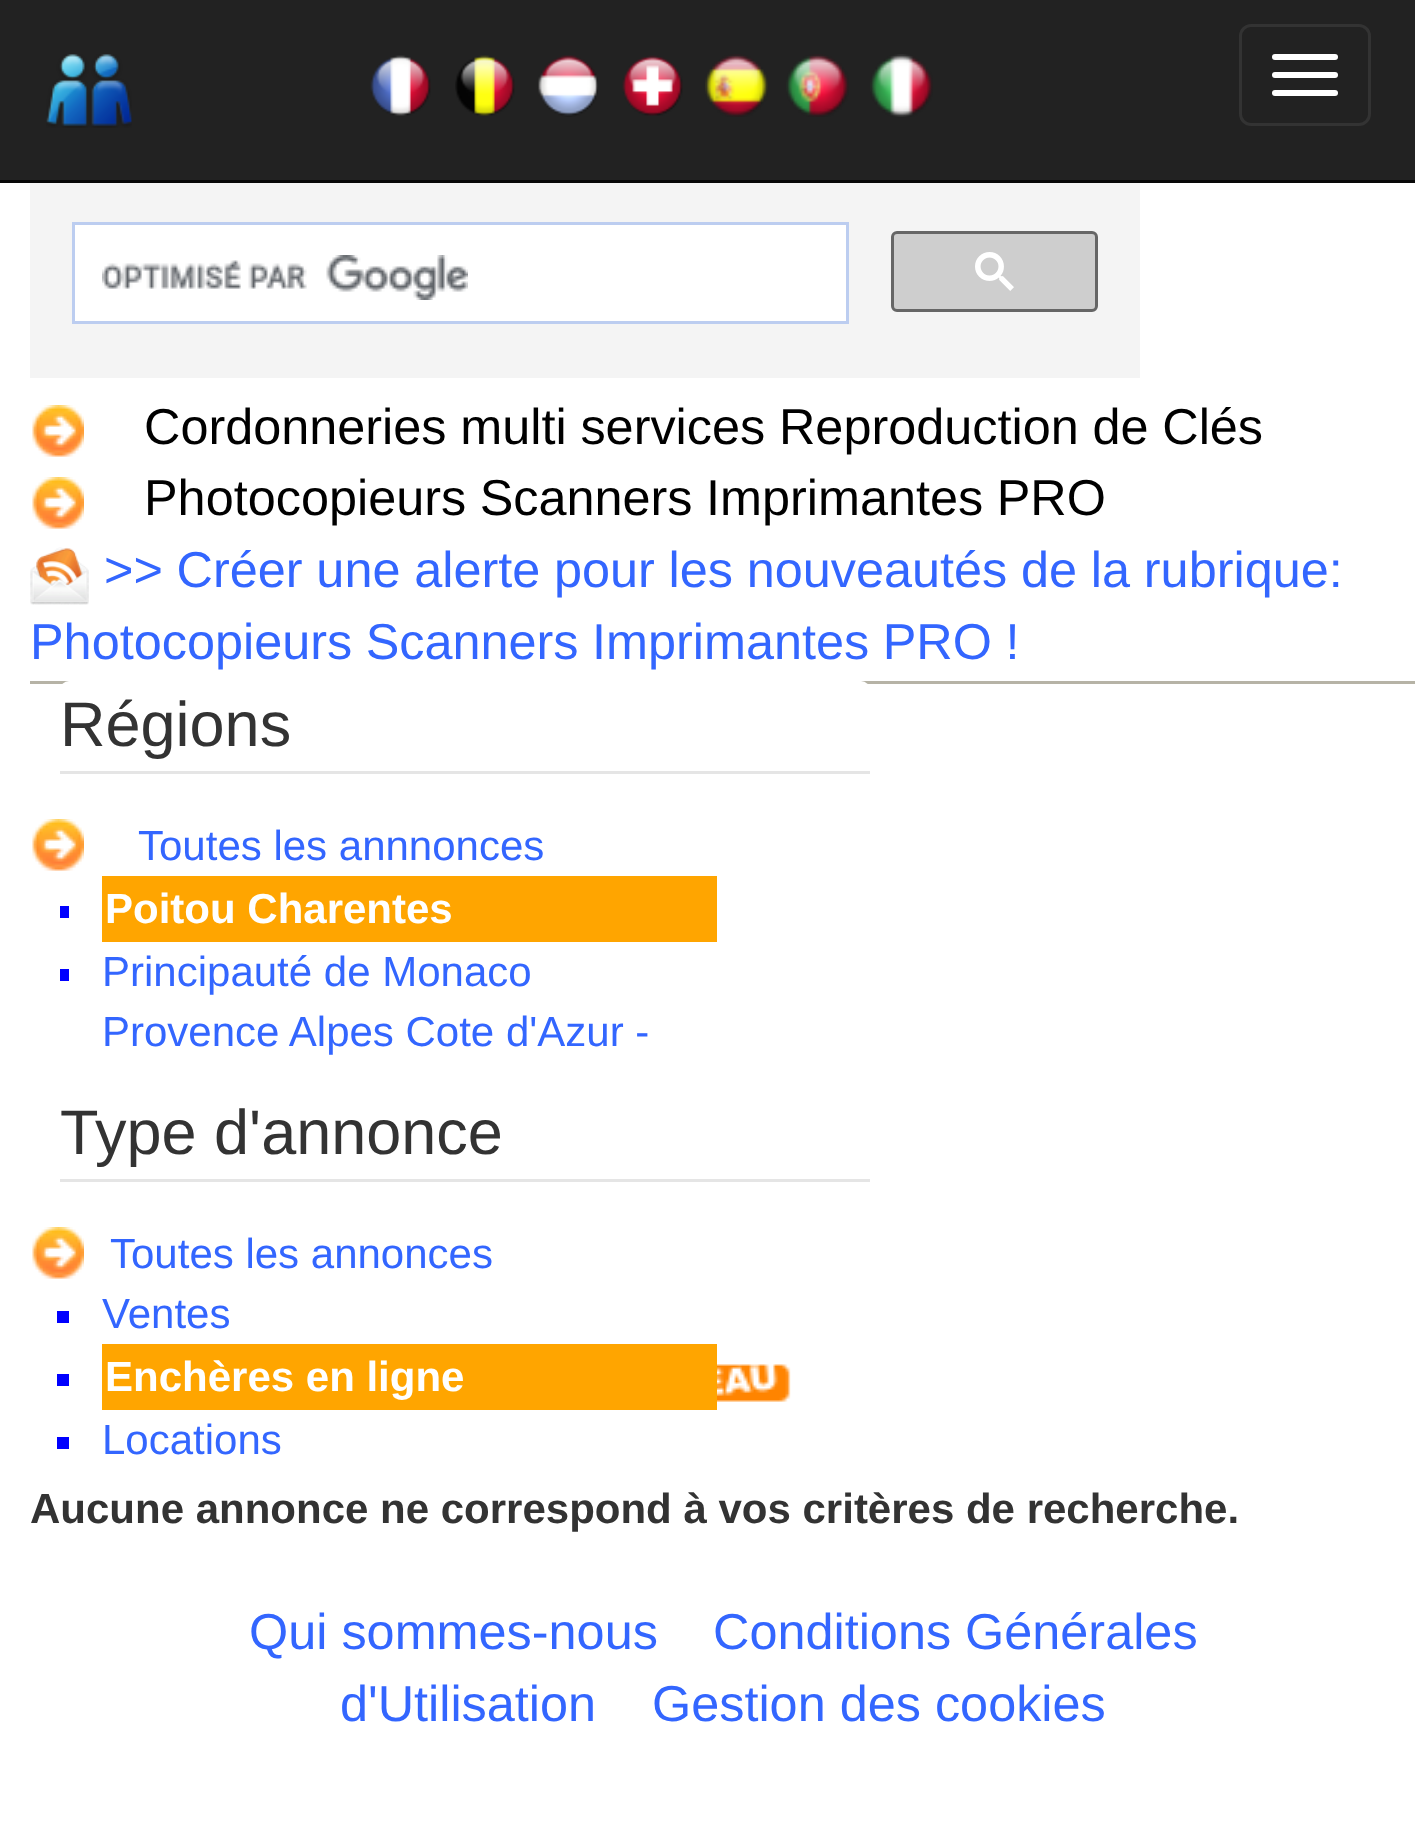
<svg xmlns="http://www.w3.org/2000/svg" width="1415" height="1838">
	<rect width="100%" height="100%" fill="#FFFFFF" />
	<rect x="0" y="0" width="1415" height="180" fill="#222222" />
	<rect x="0" y="180" width="1415" height="3" fill="#080808" />
	<image x="46" y="54" width="86" height="74" href="assets/img1.png" />
	<image x="370" y="55" width="61" height="61" href="assets/img2.png" />
	<image x="455" y="55" width="60" height="61" href="assets/img3.png" />
	<image x="538" y="55" width="60" height="62" href="assets/img4.png" />
	<image x="622" y="55" width="61" height="61" href="assets/img5.png" />
	<image x="705" y="54" width="63" height="63" href="assets/img6.png" />
	<image x="786" y="54" width="63" height="63" href="assets/img7.png" />
	<image x="870" y="54" width="63" height="63" href="assets/img8.png" />
	<rect x="1240.5" y="25.5" width="129" height="99" rx="10.5" fill="none" stroke="#333333" stroke-width="3" />
	<rect x="1272" y="54" width="66" height="6" rx="3" fill="#FFFFFF" />
	<rect x="1272" y="72" width="66" height="6" rx="3" fill="#FFFFFF" />
	<rect x="1272" y="90" width="66" height="6" rx="3" fill="#FFFFFF" />
	<rect x="30" y="183" width="1110" height="195" fill="#F4F4F4" />
	<rect x="73.5" y="223.5" width="774" height="99" fill="#FFFFFF" stroke="#BCCDF0" stroke-width="3" />
	<image x="102" y="255" width="366" height="45" href="assets/img9.png" />
	<rect x="892.5" y="232.5" width="204" height="78" rx="4.5" fill="#CECECE" stroke="#666666" stroke-width="3" />
	<image x="975" y="252" width="39" height="39" href="assets/img10.png" />
	<image x="32" y="405" width="52" height="52" href="assets/img11.png" />
	<text x="144" y="444" word-spacing="-0.25" font-family="Liberation Sans" font-size="50.4" fill="#000000">Cordonneries multi services Reproduction de Clés</text>
	<image x="32" y="477" width="52" height="52" href="assets/img11.png" />
	<text x="144" y="515" word-spacing="-0.5" font-family="Liberation Sans" font-size="50.4" fill="#000000">Photocopieurs Scanners Imprimantes PRO</text>
	<image x="30" y="547" width="59" height="58" href="assets/img12.png" />
	<g font-family="Liberation Sans" font-size="50.4" fill="#3366FF">
		<text x="104" y="587" word-spacing="-0.25">&gt;&gt; Créer une alerte pour les nouveautés de la rubrique:</text>
		<text x="30" y="659" word-spacing="-0.5">Photocopieurs Scanners Imprimantes PRO !</text>
	</g>
	<rect x="30" y="681" width="1385" height="3" fill="#B6B3A6" />
	<rect x="60" y="681" width="810" height="375" rx="9" fill="#FFFFFF" />
	<rect x="60" y="771" width="810" height="3" fill="#E5E5E5" />
	<text x="60" y="746" font-family="Liberation Sans" font-size="63" fill="#333333">Régions</text>
	<image x="32" y="819" width="52" height="52" href="assets/img11.png" />
	<text x="138" y="860" font-family="Liberation Sans" font-size="42" fill="#3366FF">Toutes les annnonces</text>
	<rect x="60" y="906" width="9" height="12" fill="#0000FF" />
	<rect x="102" y="876" width="615" height="66" fill="#FFA500" />
	<text x="105" y="923" font-family="Liberation Sans" font-size="42" font-weight="700" fill="#FFFFFF">Poitou Charentes</text>
	<rect x="60" y="969" width="9" height="12" fill="#0000FF" />
	<g font-family="Liberation Sans" font-size="42" fill="#3366FF">
		<text x="102" y="986">Principauté de Monaco</text>
		<text x="102" y="1046">Provence Alpes Cote d'Azur -</text>
	</g>
	<rect x="60" y="1179" width="810" height="3" fill="#E5E5E5" />
	<text x="60" y="1154" font-family="Liberation Sans" font-size="63" fill="#333333">Type d'annonce</text>
	<image x="32" y="1227" width="52" height="52" href="assets/img11.png" />
	<text x="110" y="1268" font-family="Liberation Sans" font-size="42" fill="#3366FF">Toutes les annonces</text>
	<rect x="57" y="1311" width="12" height="12" fill="#0000FF" />
	<text x="102" y="1328" font-family="Liberation Sans" font-size="42" fill="#3366FF">Ventes</text>
	<image x="717" y="1364" width="74" height="38" href="assets/img13.png" />
	<rect x="57" y="1374" width="12" height="12" fill="#0000FF" />
	<rect x="102" y="1344" width="615" height="66" fill="#FFA500" />
	<text x="105" y="1391" font-family="Liberation Sans" font-size="42" font-weight="700" fill="#FFFFFF">Enchères en ligne</text>
	<rect x="57" y="1437" width="12" height="12" fill="#0000FF" />
	<text x="102" y="1454" font-family="Liberation Sans" font-size="42" fill="#3366FF">Locations</text>
	<text x="30" y="1523" font-family="Liberation Sans" font-size="42" font-weight="700" fill="#333333">Aucune annonce ne correspond à vos critères de recherche.</text>
	<g font-family="Liberation Sans" font-size="50.4" fill="#3366FF">
		<text x="249" y="1649">Qui sommes-nous</text>
		<text x="713" y="1649">Conditions Générales</text>
		<text x="340" y="1721">d'Utilisation</text>
		<text x="652" y="1721">Gestion des cookies</text>
	</g>
</svg>
